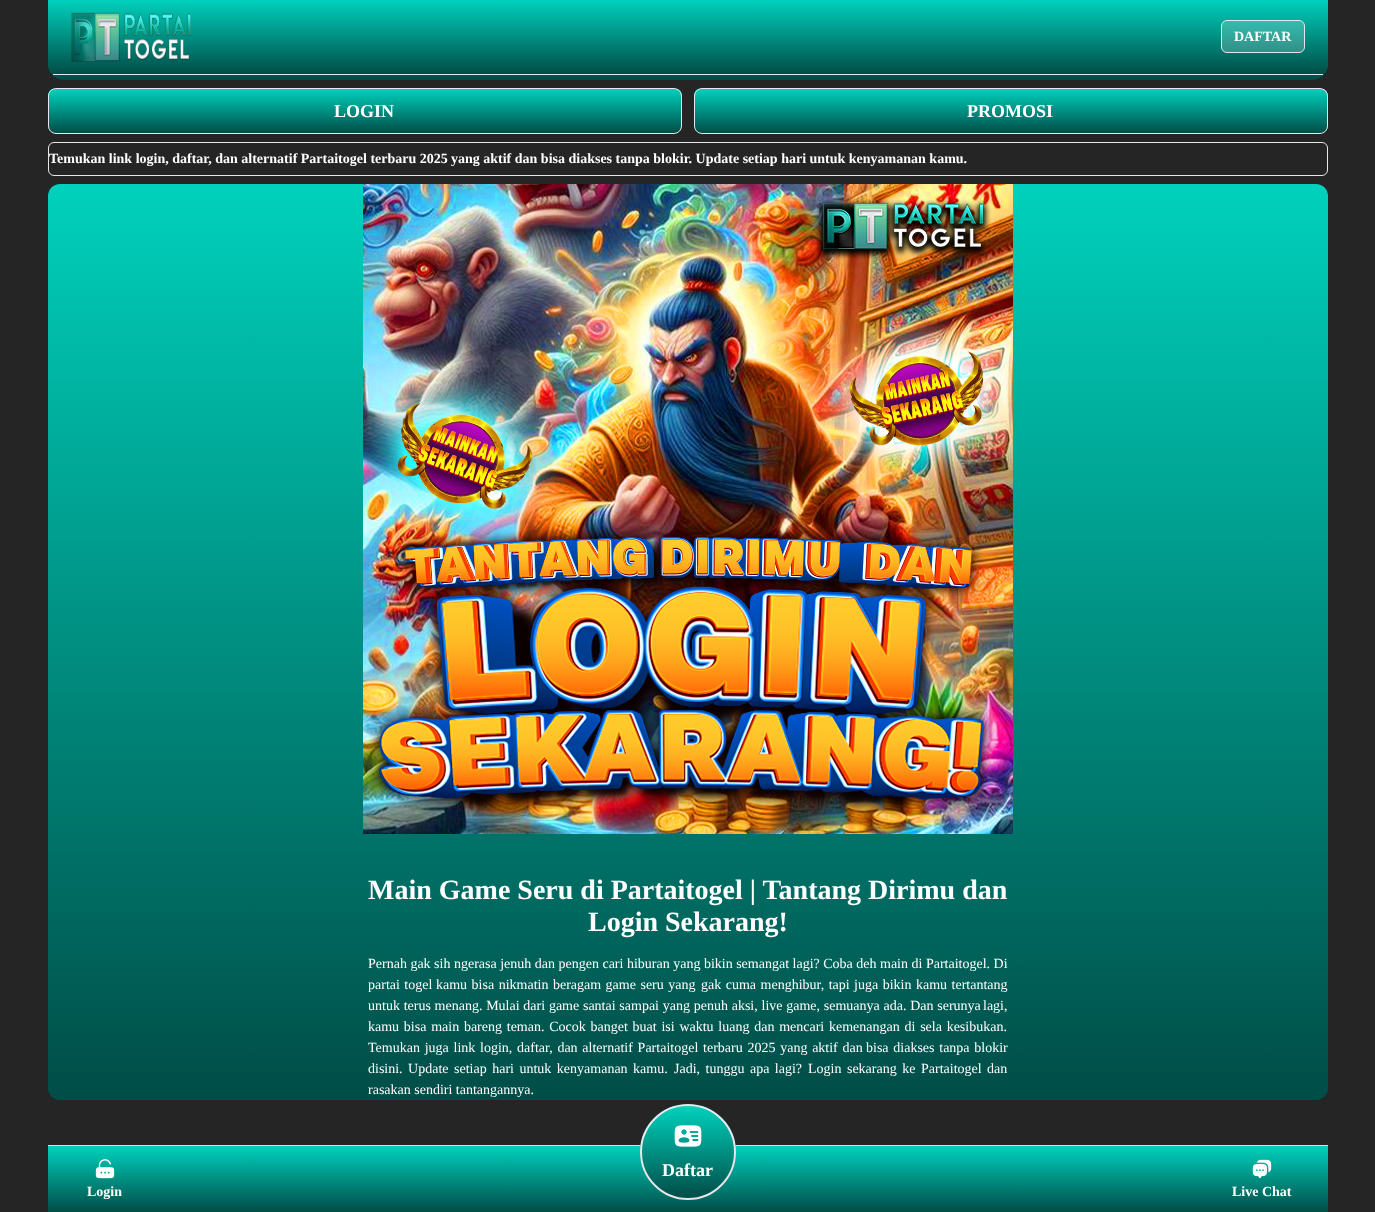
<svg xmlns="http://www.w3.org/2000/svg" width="1375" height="1212">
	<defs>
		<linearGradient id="g1" gradientUnits="userSpaceOnUse" x1="688" y1="-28" x2="688" y2="80"><stop offset="0" stop-color="#00D1BC" /><stop offset="1" stop-color="#004D47" /></linearGradient>
		<linearGradient id="g2" gradientUnits="userSpaceOnUse" x1="688" y1="0" x2="688" y2="74"><stop offset="0" stop-color="#00D1BC" /><stop offset="1" stop-color="#004D47" /></linearGradient>
		<clipPath id="clip1"><rect x="48" y="88" width="634" height="46" rx="8" /></clipPath>
		<linearGradient id="g3" gradientUnits="userSpaceOnUse" x1="365" y1="89" x2="365" y2="133"><stop offset="0" stop-color="#00D1BC" /><stop offset="1" stop-color="#004D47" /></linearGradient>
		<clipPath id="clip2"><rect x="694" y="88" width="634" height="46" rx="8" /></clipPath>
		<linearGradient id="g4" gradientUnits="userSpaceOnUse" x1="1011" y1="89" x2="1011" y2="133"><stop offset="0" stop-color="#00D1BC" /><stop offset="1" stop-color="#004D47" /></linearGradient>
		<clipPath id="clip3"><rect x="49" y="143" width="1278" height="32" rx="5" /></clipPath>
		<linearGradient id="g5" gradientUnits="userSpaceOnUse" x1="688" y1="184" x2="688" y2="1100"><stop offset="0" stop-color="#00D1BC" /><stop offset="1" stop-color="#004D47" /></linearGradient>
		<linearGradient id="g6" gradientUnits="userSpaceOnUse" x1="688" y1="1146" x2="688" y2="1212"><stop offset="0" stop-color="#00D1BC" /><stop offset="1" stop-color="#004D47" /></linearGradient>
		<clipPath id="clip4"><rect x="640" y="1104" width="96" height="96" rx="48" /></clipPath>
		<linearGradient id="g7" gradientUnits="userSpaceOnUse" x1="688" y1="1106" x2="688" y2="1198"><stop offset="0" stop-color="#00D1BC" /><stop offset="1" stop-color="#004D47" /></linearGradient>
	</defs>
	<rect width="100%" height="100%" fill="#252525" />
	<rect x="48" y="-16" width="1280" height="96" rx="16" fill="url(#g1)" />
	<path d="M48 0H1328V65C1328 70 1324 74 1318 74H58C52 74 48 70 48 65Z" fill="url(#g2)" />
	<rect x="53" y="74" width="1270" height="1" fill="#E5E7EB" />
	<image x="71" y="12" width="120" height="50" href="assets/img1.png" />
	<rect x="1221.5" y="20.5" width="83" height="32" rx="5.5" fill="#FFFFFF" fill-opacity="0.2" stroke="#E5E7EB" />
	<text x="1234" y="41" font-family="Liberation Serif" font-size="14" font-weight="700" fill="#FFFFFF">DAFTAR</text>
	<g clip-path="url(#clip1)">
		<rect x="48" y="89" width="634" height="44" fill="url(#g3)" />
	</g>
	<rect x="48.5" y="88.5" width="633" height="45" rx="7.5" fill="none" stroke="#E5E7EB" />
	<text x="334" y="117" font-family="Liberation Serif" font-size="18" font-weight="700" fill="#FFFFFF">LOGIN</text>
	<g clip-path="url(#clip2)">
		<rect x="694" y="89" width="634" height="44" fill="url(#g4)" />
	</g>
	<rect x="694.5" y="88.5" width="633" height="45" rx="7.5" fill="none" stroke="#E5E7EB" />
	<text x="967" y="117" font-family="Liberation Serif" font-size="18" font-weight="700" fill="#FFFFFF">PROMOSI</text>
	<rect x="48.5" y="142.5" width="1279" height="33" rx="5.5" fill="none" stroke="#E5E7EB" />
	<g clip-path="url(#clip3)">
		<text x="49" y="163" font-family="Liberation Serif" font-size="14" font-weight="700" fill="#FFFFFF">Temukan link login, daftar, dan alternatif Partaitogel terbaru 2025</text>
	</g>
	<text x="451" y="163" font-family="Liberation Serif" font-size="14" font-weight="700" fill="#FFFFFF">yang aktif dan bisa diakses tanpa blokir. Update setiap hari untuk kenyamanan kamu.</text>
	<rect x="48" y="184" width="1280" height="916" rx="12" fill="url(#g5)" />
	<image x="363" y="184" width="650" height="650" href="assets/img2.png" />
	<g font-family="Liberation Serif" font-size="28" font-weight="700" fill="#FFFFFF">
		<text x="368" y="899">Main Game Seru di Partaitogel | Tantang Dirimu dan</text>
		<text x="588" y="931">Login Sekarang!</text>
	</g>
	<g font-family="Liberation Serif" font-size="14" fill="#FFFFFF">
		<text x="368" y="968">Pernah gak sih ngerasa jenuh dan pengen cari hiburan yang bikin semangat lagi? Coba deh main di Partaitogel. Di</text>
		<text x="368" y="989" word-spacing="1">partai togel</text>
		<text x="436" y="989" word-spacing="1">kamu bisa nikmatin beragam game seru yang</text>
		<text x="701" y="989" word-spacing="1">gak cuma menghibur, tapi juga bikin kamu tertantang</text>
		<text x="368" y="1010" word-spacing="0.25">untuk terus menang. Mulai dari game santai sampai yang penuh aksi, live game, semuanya ada. Dan serunya</text>
		<text x="983" y="1010">lagi,</text>
		<text x="368" y="1031" word-spacing="1.25">kamu bisa main bareng teman. Cocok banget buat isi waktu luang dan mencari</text>
		<text x="829" y="1031" word-spacing="1.25">kemenangan di sela kesibukan.</text>
		<text x="368" y="1052" word-spacing="1.25">Temukan juga link login, daftar, dan alternatif Partaitogel terbaru 2025 yang aktif dan</text>
		<text x="866" y="1052" word-spacing="1.25">bisa diakses tanpa blokir</text>
		<text x="368" y="1073" word-spacing="2">disini. Update setiap hari untuk kenyamanan kamu.</text>
		<text x="674" y="1073" word-spacing="2">Jadi, tunggu apa lagi?</text>
		<text x="808" y="1073" word-spacing="2">Login sekarang ke</text>
		<text x="921" y="1073">Partaitogel</text>
		<text x="987" y="1073">dan</text>
		<text x="368" y="1094">rasakan sendiri tantangannya.</text>
	</g>
	<rect x="48" y="1146" width="1280" height="66" fill="url(#g6)" />
	<rect x="48" y="1145" width="1280" height="1" fill="#FFDC83" />
	<g clip-path="url(#clip4)">
		<rect x="640" y="1106" width="96" height="92" fill="url(#g7)" />
	</g>
	<circle cx="688" cy="1152" r="47" fill="none" stroke="#E5E7EB" stroke-width="2" />
	<image x="674" y="1125" width="28" height="22" href="assets/img3.png" />
	<text x="662" y="1176" font-family="Liberation Serif" font-size="18" font-weight="700" fill="#FFFFFF">Daftar</text>
	<image x="95" y="1159" width="20" height="20" href="assets/img4.png" />
	<text x="87" y="1196" font-family="Liberation Serif" font-size="14" font-weight="700" fill="#FFFFFF">Login</text>
	<image x="1252" y="1159" width="20" height="20" href="assets/img5.png" />
	<text x="1232" y="1196" font-family="Liberation Serif" font-size="14" font-weight="700" fill="#FFFFFF">Live Chat</text>
</svg>
